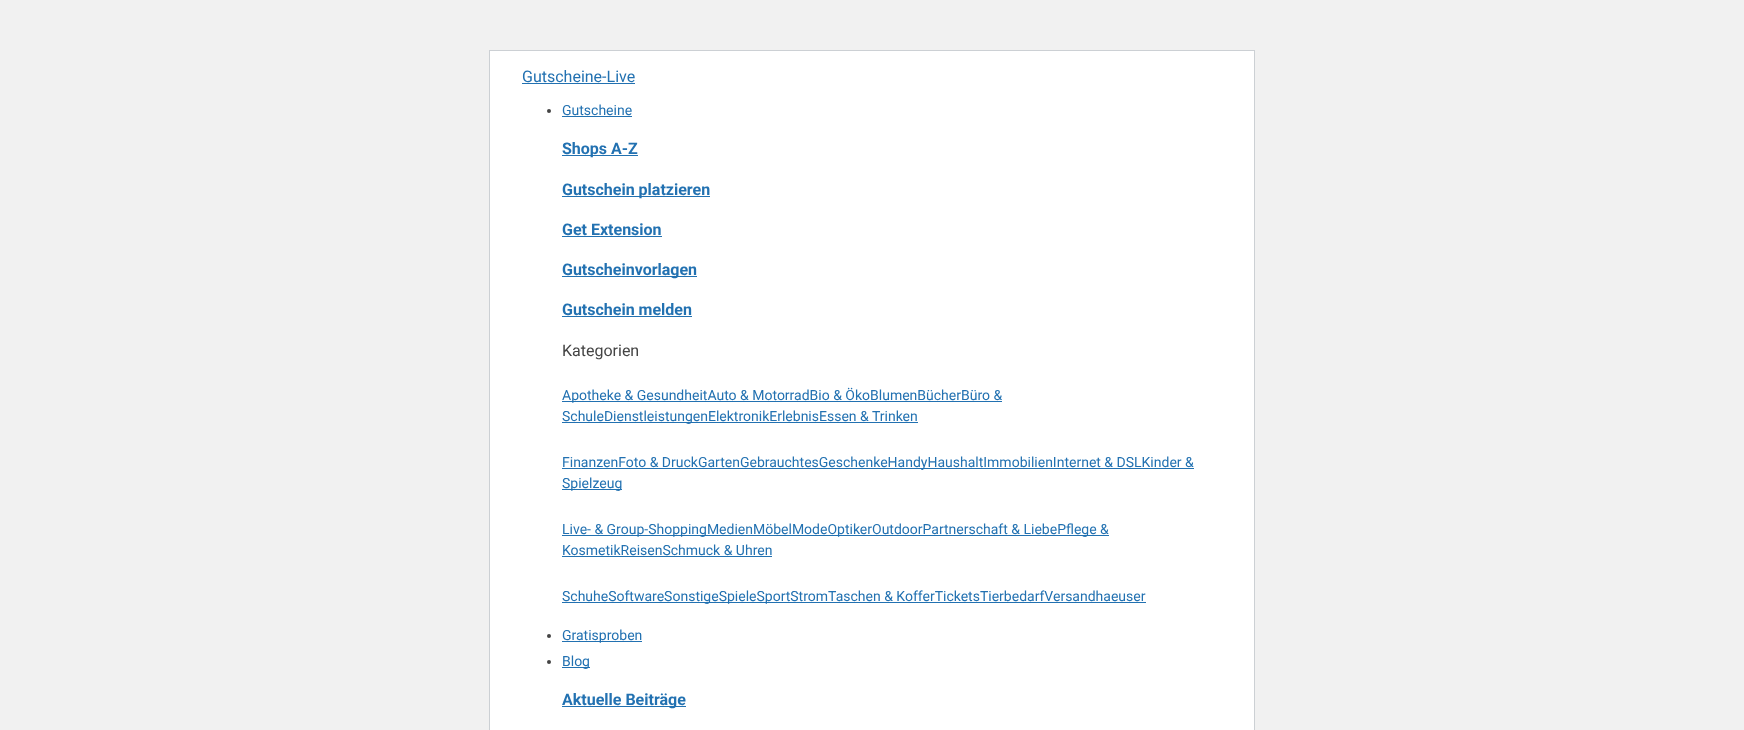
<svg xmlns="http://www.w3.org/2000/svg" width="1744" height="730">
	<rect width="100%" height="100%" fill="#F1F1F1" />
	<rect x="489.5" y="50.5" width="765" height="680" fill="#FFFFFF" stroke="#CCD0D4" />
	<text x="522" y="82" font-family="Roboto" font-size="16" fill="#2271B1">Gutscheine-Live</text>
	<rect x="522" y="83" width="113" height="1" fill="#2271B1" />
	<circle cx="549" cy="111" r="2" fill="#444444" />
	<text x="562" y="115" font-family="Roboto" font-size="14" fill="#2271B1">Gutscheine</text>
	<rect x="562" y="116" width="70" height="1" fill="#2271B1" />
	<rect x="562" y="155" width="76" height="1" fill="#2271B1" />
	<text x="562" y="154" font-family="Roboto" font-size="16" font-weight="700" fill="#2271B1">Shops A-Z</text>
	<rect x="562" y="196" width="148" height="1" fill="#2271B1" />
	<g font-family="Roboto" font-size="16" font-weight="700" fill="#2271B1">
		<text x="562" y="195">Gutschein platzieren</text>
		<text x="562" y="235">Get Extension</text>
	</g>
	<rect x="562" y="236" width="100" height="1" fill="#2271B1" />
	<rect x="562" y="276" width="135" height="1" fill="#2271B1" />
	<g font-family="Roboto" font-size="16" font-weight="700" fill="#2271B1">
		<text x="562" y="275">Gutscheinvorlagen</text>
		<text x="562" y="315">Gutschein melden</text>
	</g>
	<rect x="562" y="316" width="130" height="1" fill="#2271B1" />
	<text x="562" y="356" font-family="Roboto" font-size="16" fill="#444444">Kategorien</text>
	<rect x="562" y="401" width="440" height="1" fill="#2271B1" />
	<text x="562" y="400" font-family="Roboto" font-size="14" fill="#2271B1">Apotheke &amp; GesundheitAuto &amp; MotorradBio &amp; ÖkoBlumenBücherBüro &amp;</text>
	<rect x="562" y="422" width="207" height="1" fill="#2271B1" />
	<text x="562" y="421" font-family="Roboto" font-size="14" fill="#2271B1">SchuleDienstleistungenElektronikErlebnisEssen &amp; Trinken</text>
	<rect x="769" y="422" width="149" height="1" fill="#2271B1" />
	<rect x="562" y="468" width="365" height="1" fill="#2271B1" />
	<text x="562" y="467" font-family="Roboto" font-size="14" fill="#2271B1">FinanzenFoto &amp; DruckGartenGebrauchtesGeschenkeHandyHaushaltImmobilienInternet &amp; DSLKinder &amp;</text>
	<rect x="927" y="468" width="267" height="1" fill="#2271B1" />
	<rect x="562" y="489" width="60" height="1" fill="#2271B1" />
	<text x="562" y="488" font-family="Roboto" font-size="14" fill="#2271B1">Spielzeug</text>
	<rect x="562" y="535" width="547" height="1" fill="#2271B1" />
	<g font-family="Roboto" font-size="14" fill="#2271B1">
		<text x="562" y="534">Live- &amp; Group-ShoppingMedienMöbelModeOptikerOutdoorPartnerschaft &amp; LiebePflege &amp;</text>
		<text x="562" y="555">KosmetikReisenSchmuck &amp; Uhren</text>
	</g>
	<rect x="562" y="556" width="210" height="1" fill="#2271B1" />
	<rect x="562" y="602" width="482" height="1" fill="#2271B1" />
	<text x="562" y="601" font-family="Roboto" font-size="14" fill="#2271B1">SchuheSoftwareSonstigeSpieleSportStromTaschen &amp; KofferTicketsTierbedarfVersandhaeuser</text>
	<rect x="1044" y="602" width="102" height="1" fill="#2271B1" />
	<circle cx="549" cy="636" r="2" fill="#444444" />
	<rect x="562" y="641" width="80" height="1" fill="#2271B1" />
	<text x="562" y="640" font-family="Roboto" font-size="14" fill="#2271B1">Gratisproben</text>
	<circle cx="549" cy="662" r="2" fill="#444444" />
	<rect x="562" y="667" width="28" height="1" fill="#2271B1" />
	<text x="562" y="666" font-family="Roboto" font-size="14" fill="#2271B1">Blog</text>
	<rect x="562" y="706" width="124" height="1" fill="#2271B1" />
	<text x="562" y="705" font-family="Roboto" font-size="16" font-weight="700" fill="#2271B1">Aktuelle Beiträge</text>
</svg>
